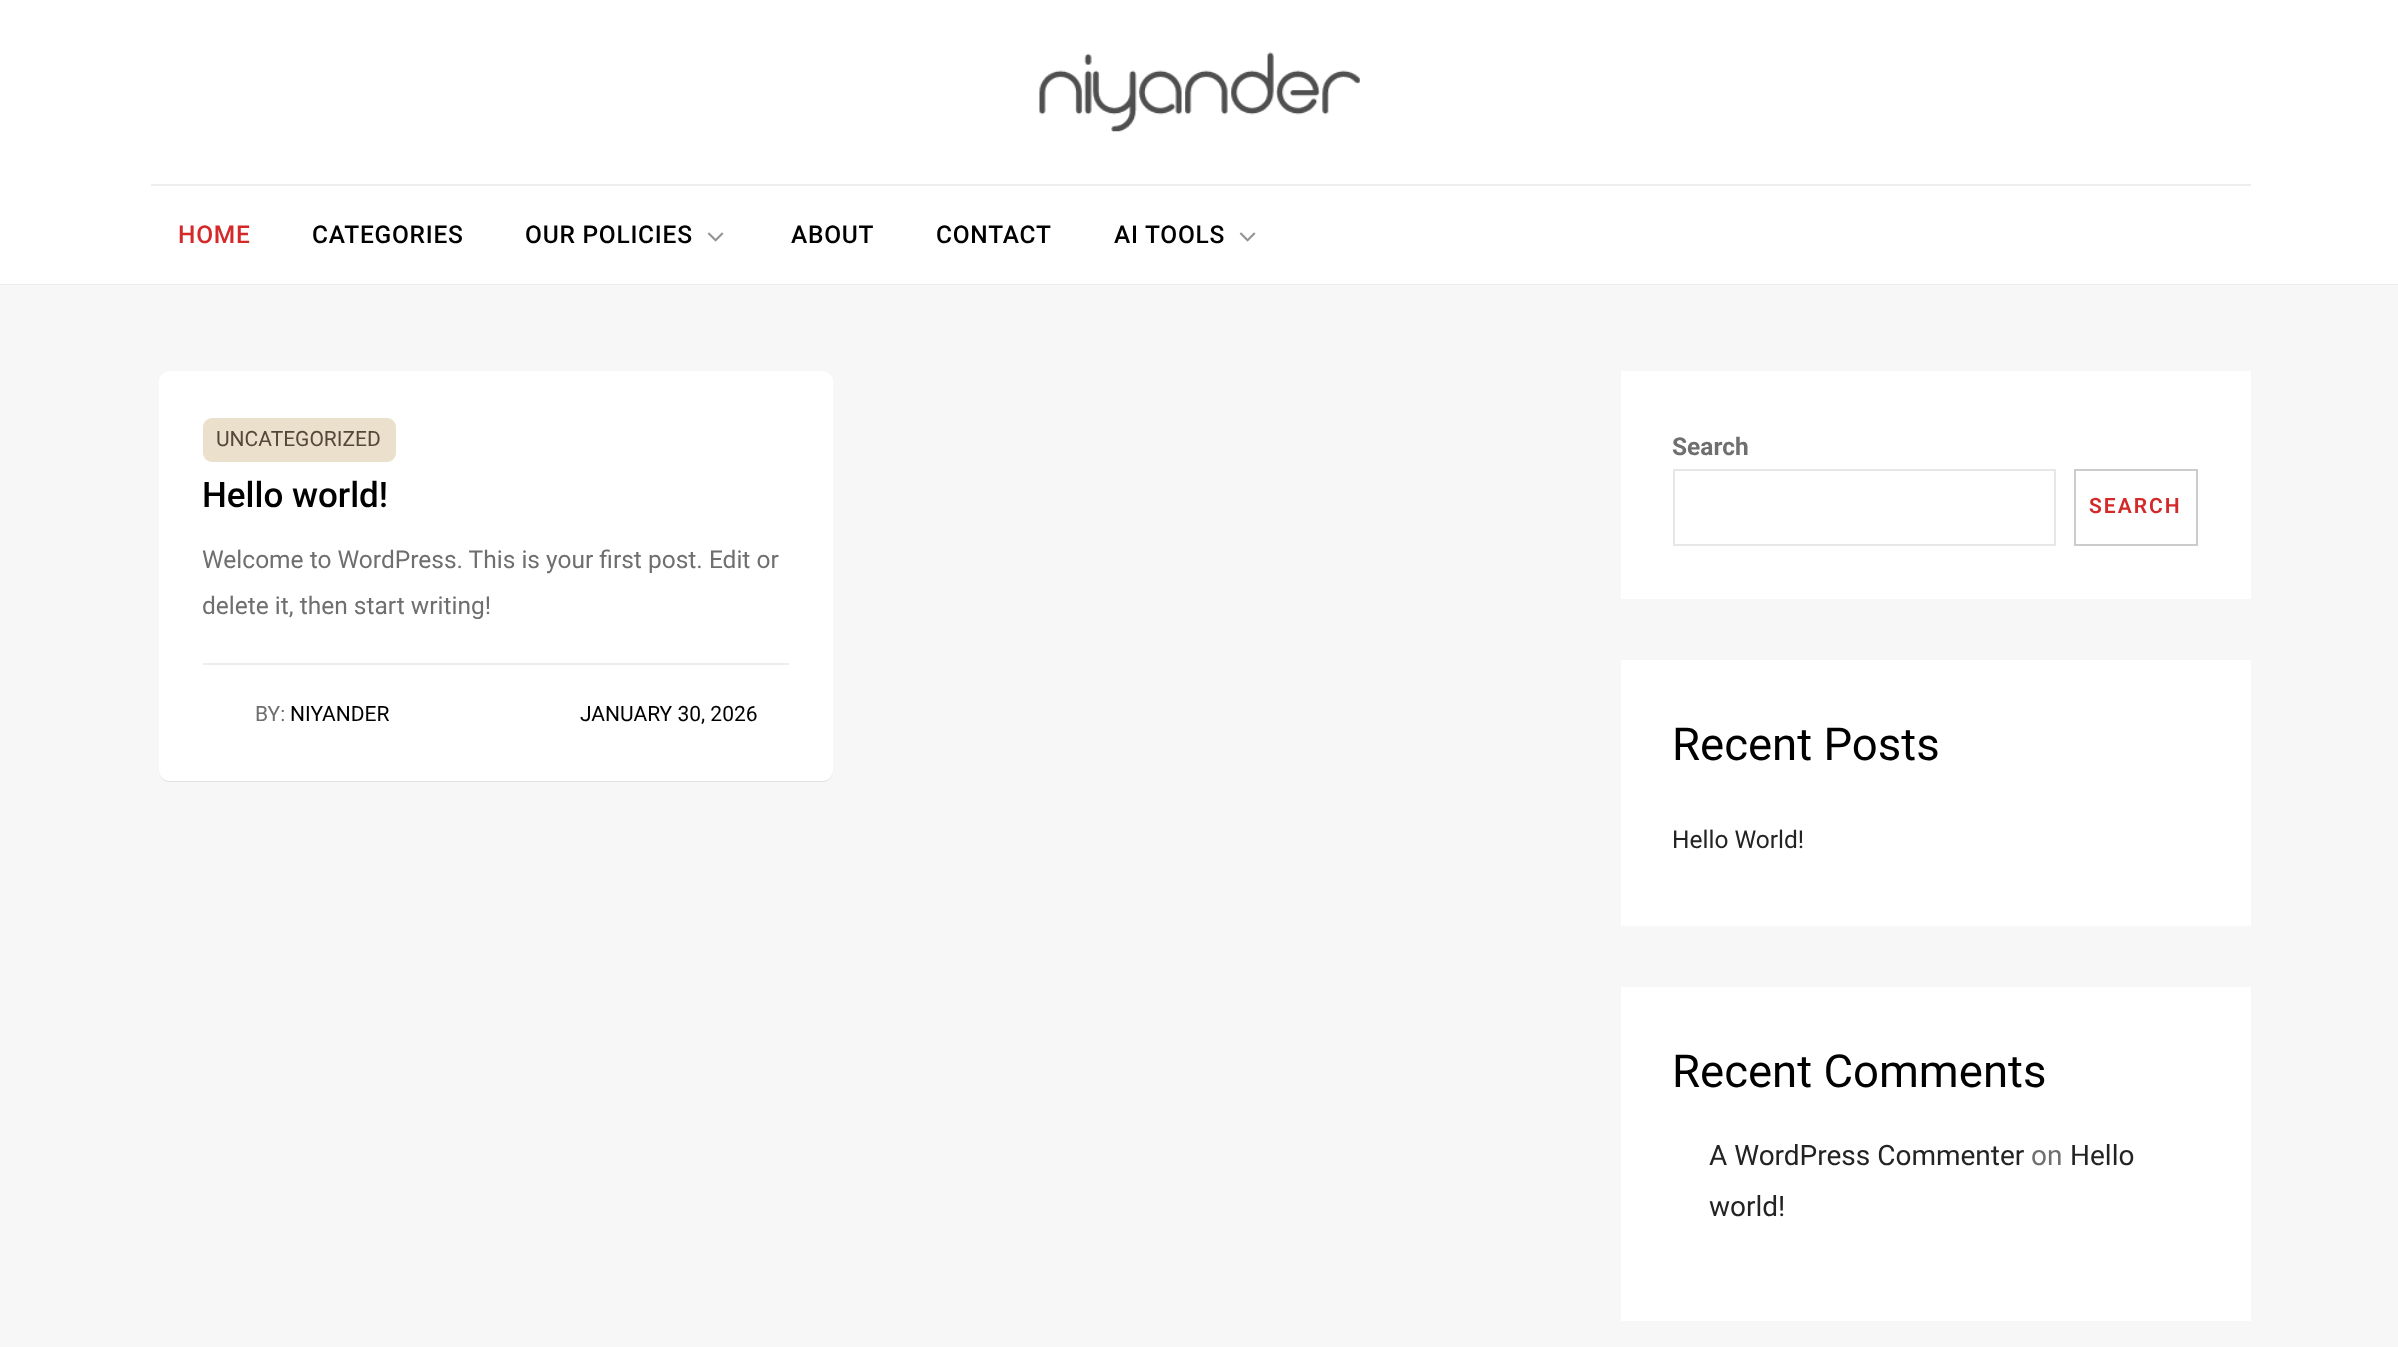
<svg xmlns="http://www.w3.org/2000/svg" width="2398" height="1347">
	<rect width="100%" height="100%" fill="#F7F7F7" />
	<rect x="0" y="284" width="2398" height="1" fill="#ECECEC" />
	<rect x="0" y="0" width="2398" height="284" fill="#FFFFFF" />
	<rect x="151" y="184" width="2100" height="2" fill="#EEEEEE" />
	<image x="1039" y="52" width="321" height="80" href="assets/img1.png" />
	<text x="178" y="243" font-family="Roboto" font-size="24.5" font-weight="500" letter-spacing="0.75" fill="#D42929">HOME</text>
	<g font-family="Roboto" font-size="24.5" font-weight="500" letter-spacing="0.75" fill="#000000">
		<text x="312" y="243">CATEGORIES</text>
		<text x="525" y="243">OUR POLICIES</text>
	</g>
	<image x="707" y="232" width="17" height="10" href="assets/img2.png" />
	<g font-family="Roboto" font-size="24.5" font-weight="500" letter-spacing="0.75" fill="#000000">
		<text x="791" y="243">ABOUT</text>
		<text x="936" y="243">CONTACT</text>
		<text x="1114" y="243">AI TOOLS</text>
	</g>
	<image x="1239" y="232" width="17" height="10" href="assets/img2.png" />
	<path d="M159 382V771C159 777 164 782 170 782H822C828 782 833 777 833 771V770C833 776 828 780 822 780H170C164 780 159 776 159 770Z" fill="#E0E0E1" />
	<rect x="159" y="371" width="674" height="410" rx="11" fill="#FFFFFF" />
	<rect x="203" y="418" width="193" height="44" rx="9" fill="#EAE0CC" />
	<text x="216" y="446" font-family="Roboto" font-size="21" fill="#57473A">UNCATEGORIZED</text>
	<text x="202" y="507" font-family="Roboto" font-size="35" font-weight="500" fill="#000000">Hello world!</text>
	<rect x="203" y="663" width="586" height="2" fill="#EDEDED" />
	<g font-family="Roboto" font-size="24.5" fill="#6F6F6F">
		<text x="202" y="568">Welcome to WordPress. This is your first post. Edit or</text>
		<text x="202" y="614">delete it, then start writing!</text>
	</g>
	<text x="255" y="721" font-family="Roboto" font-size="21" fill="#6F6F6F">BY:</text>
	<g font-family="Roboto" font-size="21" fill="#000000">
		<text x="290" y="721">NIYANDER</text>
		<text x="580" y="721">JANUARY 30, 2026</text>
	</g>
	<rect x="1621" y="371" width="630" height="228" fill="#FFFFFF" />
	<text x="1672" y="455" font-family="Roboto" font-size="24.5" font-weight="700" fill="#6F6F6F">Search</text>
	<rect x="1674" y="470" width="381" height="75" fill="none" stroke="#E7E7E7" stroke-width="2" />
	<rect x="2075" y="470" width="122" height="75" fill="none" stroke="#CCCCCC" stroke-width="2" />
	<text x="2089" y="513" font-family="Roboto" font-size="21" font-weight="600" letter-spacing="2" fill="#D42929">SEARCH</text>
	<rect x="1621" y="660" width="630" height="266" fill="#FFFFFF" />
	<text x="1672" y="760" font-family="Roboto" font-size="45.5" fill="#000000">Recent Posts</text>
	<text x="1672" y="848" font-family="Roboto" font-size="24.5" fill="#232323">Hello World!</text>
	<rect x="1621" y="987" width="630" height="334" fill="#FFFFFF" />
	<text x="1672" y="1087" font-family="Roboto" font-size="45.5" fill="#000000">Recent Comments</text>
	<text x="1709" y="1165" font-family="Roboto" font-size="28" fill="#232323">A WordPress Commenter</text>
	<text x="2031" y="1165" font-family="Roboto" font-size="28" fill="#6F6F6F">on</text>
	<g font-family="Roboto" font-size="28" fill="#232323">
		<text x="2070" y="1165">Hello</text>
		<text x="1709" y="1216">world!</text>
	</g>
</svg>
